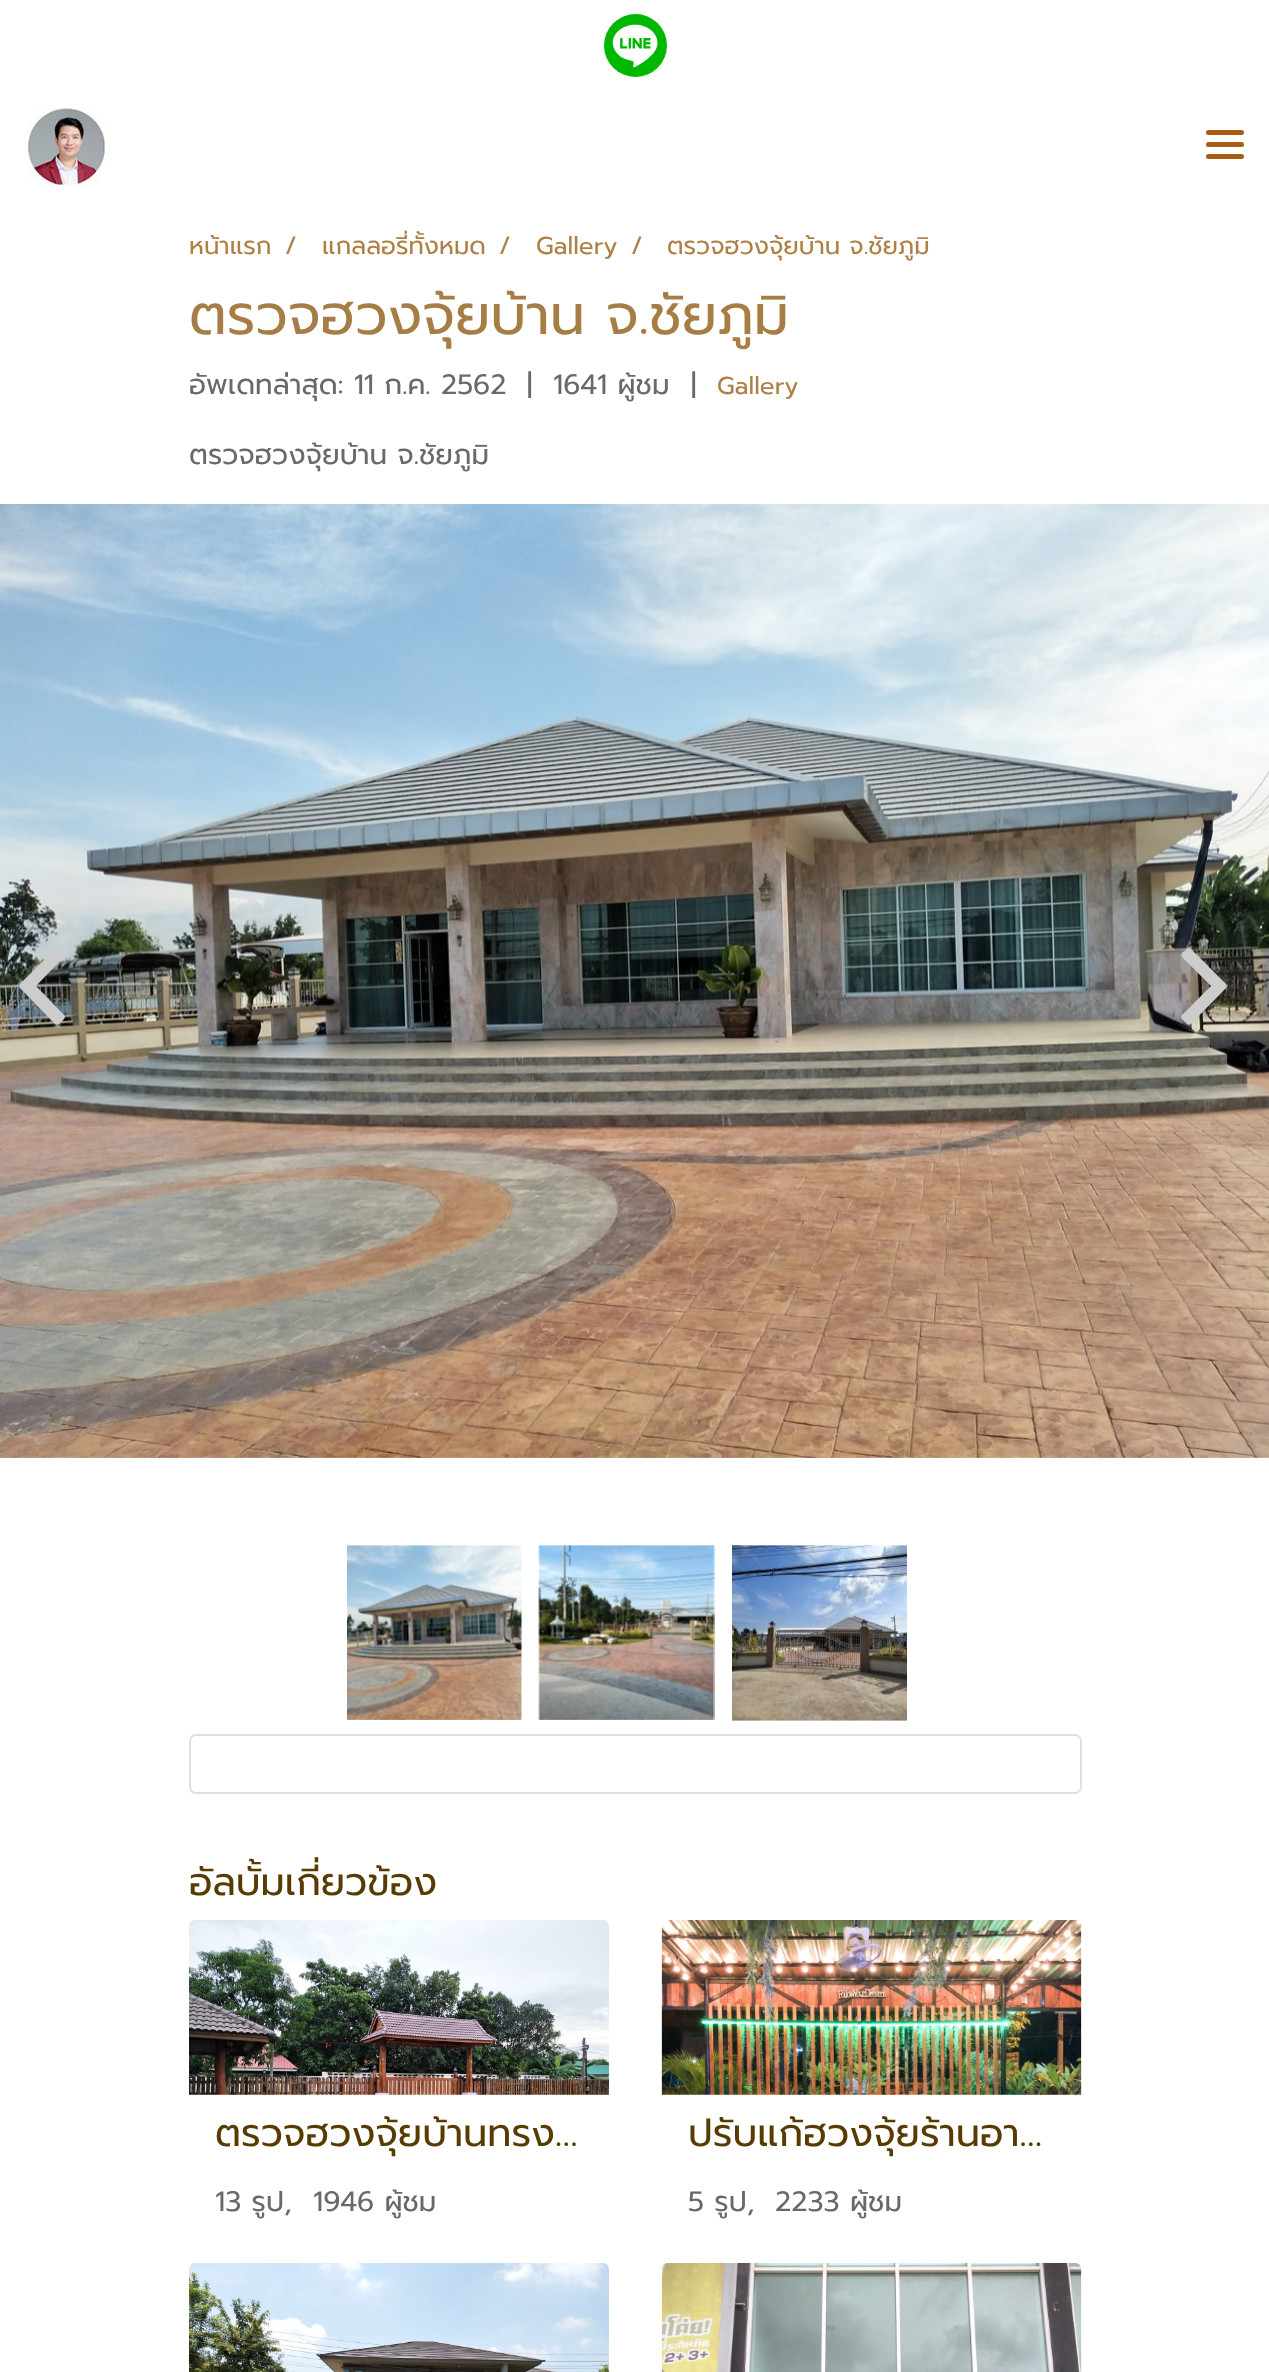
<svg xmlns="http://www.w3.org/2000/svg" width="1269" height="2372">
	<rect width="100%" height="100%" fill="#FFFFFF" />
	<circle cx="635.5" cy="45.5" r="31.5" fill="#00B800" />
	<image x="604" y="24" width="62" height="44" href="assets/img1.png" />
	<image x="28" y="108" width="77" height="78" href="assets/img2.png" />
	<rect x="1206" y="142" width="38" height="5" rx="2.5" fill="#A65E14" />
	<rect x="1206" y="130" width="38" height="5" rx="2.5" fill="#A65E14" />
	<rect x="1206" y="154" width="38" height="5" rx="2.5" fill="#A65E14" />
	<g font-family="Prompt" font-size="24.5" fill="#AF8045">
		<text x="189" y="254">หน้าแรก</text>
		<text x="285" y="254">/</text>
		<text x="322" y="254">แกลลอรี่ทั้งหมด</text>
		<text x="499" y="254">/</text>
		<text x="536" y="254">Gallery</text>
		<text x="631" y="254">/</text>
		<text x="667" y="254">ตรวจฮวงจุ้ยบ้าน จ.ชัยภูมิ</text>
	</g>
	<text x="189" y="334" font-family="Prompt" font-size="56" fill="#A67D44">ตรวจฮวงจุ้ยบ้าน จ.ชัยภูมิ</text>
	<g font-family="Prompt" font-size="28" fill="#696969">
		<text x="189" y="394">อัพเดทล่าสุด: 11 ก.ค. 2562</text>
		<text x="527" y="394">|</text>
		<text x="553" y="394">1641 ผู้ชม</text>
		<text x="691" y="394">|</text>
	</g>
	<text x="717" y="394" font-family="Prompt" font-size="24.5" fill="#AF8045">Gallery</text>
	<text x="189" y="464" font-family="Prompt" font-size="28" fill="#696969">ตรวจฮวงจุ้ยบ้าน จ.ชัยภูมิ</text>
	<image x="0" y="504" width="1269" height="954" href="assets/img3.png" />
	<path d="M20 984L55 949C57 948 58 948 59 949L64 953C65 955 65 956 64 957L36 986L64 1015C65 1016 65 1018 64 1019L59 1024C58 1025 57 1025 55 1024L20 988C19 987 19 985 20 984Z" fill="#CCCCCC" />
	<path d="M1226 988L1191 1024C1190 1025 1188 1025 1187 1024L1182 1019C1181 1018 1181 1016 1182 1015L1211 986L1182 957C1181 956 1181 955 1182 953L1187 949C1188 948 1190 948 1191 949L1226 984C1227 985 1227 987 1226 988Z" fill="#CCCCCC" />
	<image x="347" y="1545" width="175" height="175" href="assets/img4.png" />
	<image x="538" y="1545" width="177" height="175" href="assets/img5.png" />
	<image x="732" y="1545" width="175" height="176" href="assets/img6.png" />
	<rect x="190" y="1735" width="891" height="58" rx="6" fill="none" stroke="#DFDFDF" stroke-width="2" />
	<text x="189" y="1895" font-family="Prompt" font-size="38.5" fill="#573B00">อัลบั้มเกี่ยวข้อง</text>
	<image x="189" y="1920" width="420" height="175" href="assets/img7.png" />
	<text x="215" y="2146" font-family="Prompt" font-size="38.5" fill="#573B00">ตรวจฮวงจุ้ยบ้านทรง…</text>
	<g font-family="Prompt" font-size="28" fill="#696969">
		<text x="215" y="2211">13 รูป,</text>
		<text x="313" y="2211">1946 ผู้ชม</text>
	</g>
	<image x="661" y="1920" width="421" height="175" href="assets/img8.png" />
	<text x="688" y="2146" font-family="Prompt" font-size="38.5" fill="#573B00">ปรับแก้ฮวงจุ้ยร้านอา…</text>
	<g font-family="Prompt" font-size="28" fill="#696969">
		<text x="688" y="2211">5 รูป,</text>
		<text x="775" y="2211">2233 ผู้ชม</text>
	</g>
	<image x="189" y="2263" width="420" height="109" href="assets/img9.png" />
	<image x="661" y="2263" width="421" height="109" href="assets/img10.png" />
</svg>
